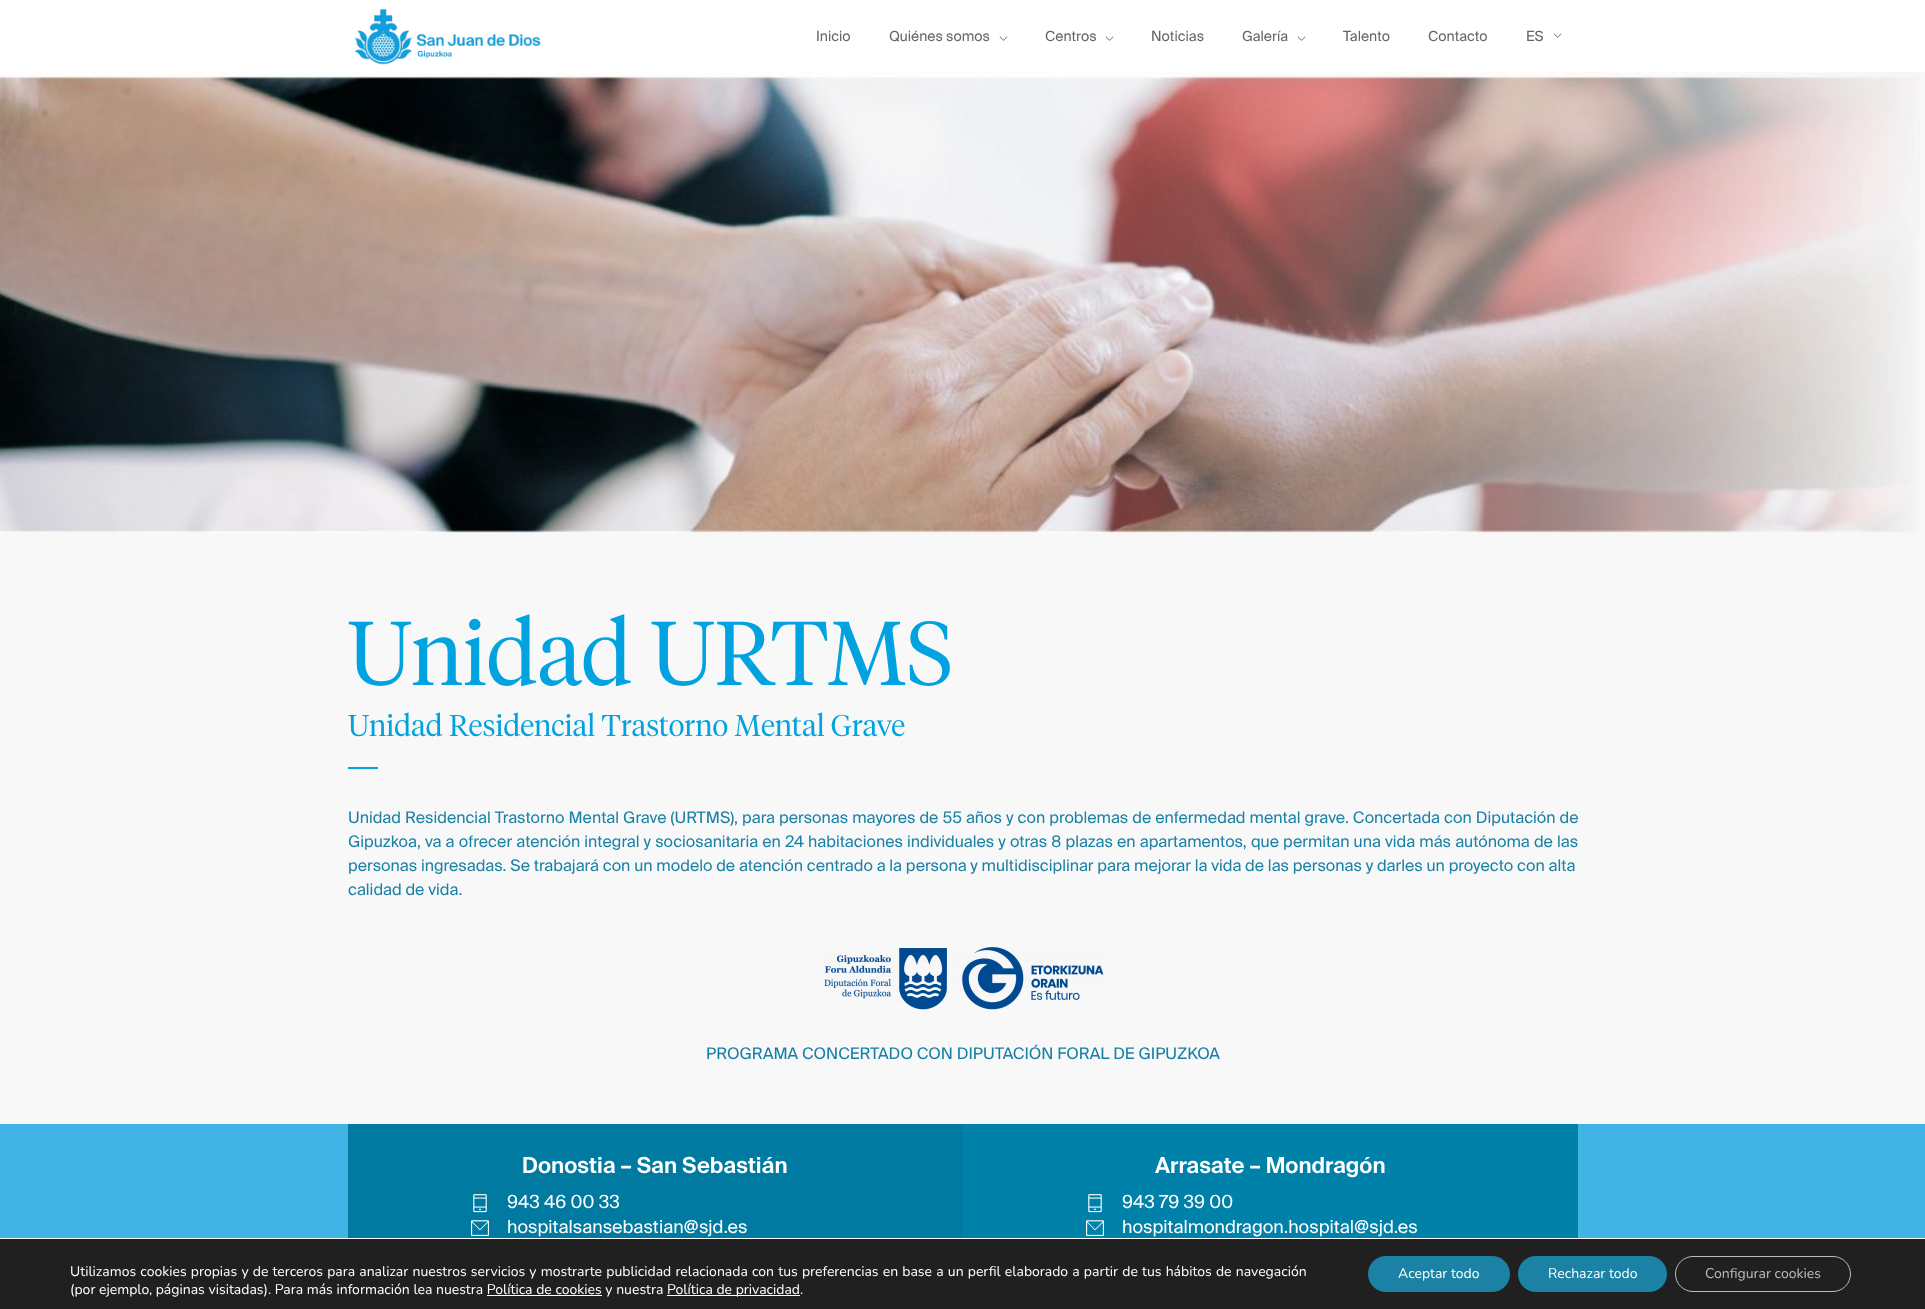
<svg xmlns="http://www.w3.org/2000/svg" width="1925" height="1309">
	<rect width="100%" height="100%" fill="#F8F8F8" />
	<rect x="0" y="0" width="1925" height="72" fill="#FFFFFF" />
	<image x="354" y="8" width="187" height="57" href="assets/img1.png" />
	<g font-family="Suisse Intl" font-size="14" fill="#666666">
		<text x="816" y="41">Inicio</text>
		<text x="889" y="41">Quiénes somos</text>
	</g>
	<image x="999" y="36" width="9" height="5" href="assets/img2.png" />
	<text x="1045" y="41" font-family="Suisse Intl" font-size="14" fill="#666666">Centros</text>
	<image x="1105" y="36" width="9" height="5" href="assets/img2.png" />
	<g font-family="Suisse Intl" font-size="14" fill="#666666">
		<text x="1151" y="41">Noticias</text>
		<text x="1242" y="41">Galería</text>
	</g>
	<image x="1297" y="36" width="9" height="5" href="assets/img2.png" />
	<g font-family="Suisse Intl" font-size="14" fill="#666666">
		<text x="1343" y="41">Talento</text>
		<text x="1428" y="41">Contacto</text>
		<text x="1526" y="41">ES</text>
	</g>
	<image x="1553" y="33" width="9" height="5" href="assets/img2.png" />
	<image x="0" y="72" width="1920" height="461" href="assets/img3.png" />
	<text x="348" y="685" font-family="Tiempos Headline" font-size="90" font-weight="300" fill="#00A3E0">Unidad URTMS</text>
	<text x="348" y="736" font-family="Tiempos Headline" font-size="30" font-weight="300" fill="#00A3E0">Unidad Residencial Trastorno Mental Grave</text>
	<rect x="348" y="767" width="30" height="2" fill="#00A3E0" />
	<g font-family="Suisse Intl" font-size="16" fill="#1B81A5">
		<text x="348" y="823" word-spacing="0.25">Unidad Residencial Trastorno Mental Grave (URTMS), para personas mayores de 55 años y con problemas de enfermedad mental grave. Concertada con Diputación de</text>
		<text x="348" y="847" word-spacing="0.35">Gipuzkoa, va a ofrecer atención integral y sociosanitaria en 24 habitaciones individuales y otras 8 plazas en apartamentos, que permitan una vida más autónoma de las</text>
		<text x="348" y="871">personas ingresadas. Se trabajará con un modelo de atención centrado a la persona y multidisciplinar para mejorar la vida de las personas y darles un proyecto con alta</text>
		<text x="348" y="895">calidad de vida.</text>
	</g>
	<image x="824" y="946" width="280" height="64" href="assets/img4.png" />
	<text x="706" y="1059" font-family="Suisse Intl" font-size="16" fill="#157FA6">PROGRAMA CONCERTADO CON DIPUTACIÓN FORAL DE GIPUZKOA</text>
	<rect x="0" y="1124" width="1925" height="114" fill="#42B3E5" />
	<rect x="348" y="1124" width="615" height="114" fill="#007AA1" />
	<text x="522" y="1173" font-family="Suisse Intl" font-size="22" font-weight="600" fill="#FFFFFF">Donostia – San Sebastián</text>
	<image x="473" y="1194" width="14" height="19" href="assets/img5.png" />
	<text x="507" y="1208" font-family="Suisse Intl" font-size="18" fill="#FFFFFF">943 46 00 33</text>
	<image x="471" y="1220" width="18" height="16" href="assets/img6.png" />
	<text x="507" y="1233" font-family="Suisse Intl" font-size="18" fill="#FFFFFF">hospitalsansebastian@sjd.es</text>
	<rect x="963" y="1124" width="615" height="114" fill="#0081A9" />
	<text x="1155" y="1173" font-family="Suisse Intl" font-size="22" font-weight="600" fill="#FFFFFF">Arrasate – Mondragón</text>
	<image x="1088" y="1194" width="14" height="19" href="assets/img7.png" />
	<text x="1122" y="1208" font-family="Suisse Intl" font-size="18" fill="#FFFFFF">943 79 39 00</text>
	<image x="1086" y="1220" width="18" height="16" href="assets/img8.png" />
	<text x="1122" y="1233" font-family="Suisse Intl" font-size="18" fill="#FFFFFF">hospitalmondragon.hospital@sjd.es</text>
	<rect x="0" y="1239" width="1925" height="70" fill="#202020" />
	<rect x="0" y="1238" width="1925" height="1" fill="#FFFFFF" />
	<g font-family="Nunito" font-size="14" fill="#FFFFFF">
		<text x="70" y="1276" word-spacing="0.55">Utilizamos cookies propias y de terceros para analizar nuestros servicios y mostrarte publicidad relacionada con tus preferencias en base a un perfil elaborado a partir de tus hábitos de navegación</text>
		<text x="70" y="1294">(por ejemplo, páginas visitadas). Para más información lea nuestra Política de cookies y nuestra</text>
	</g>
	<rect x="667" y="1295" width="133" height="1" fill="#FFFFFF" />
	<text x="667" y="1294" font-family="Nunito" font-size="14" fill="#FFFFFF">Política de privacidad.</text>
	<rect x="487" y="1295" width="115" height="1" fill="#FFFFFF" />
	<rect x="1368" y="1256" width="142" height="36" rx="18" fill="#1B81A5" />
	<text x="1398" y="1278" font-family="Nunito" font-size="14" fill="#FFFFFF">Aceptar todo</text>
	<rect x="1518" y="1256" width="149" height="36" rx="18" fill="#1B81A5" />
	<text x="1548" y="1278" font-family="Nunito" font-size="14" fill="#FFFFFF">Rechazar todo</text>
	<rect x="1675.5" y="1256.5" width="175" height="35" rx="17.5" fill="none" stroke="#BCBCBC" />
	<text x="1705" y="1278" font-family="Nunito" font-size="14" fill="#BCBCBC">Configurar cookies</text>
</svg>
